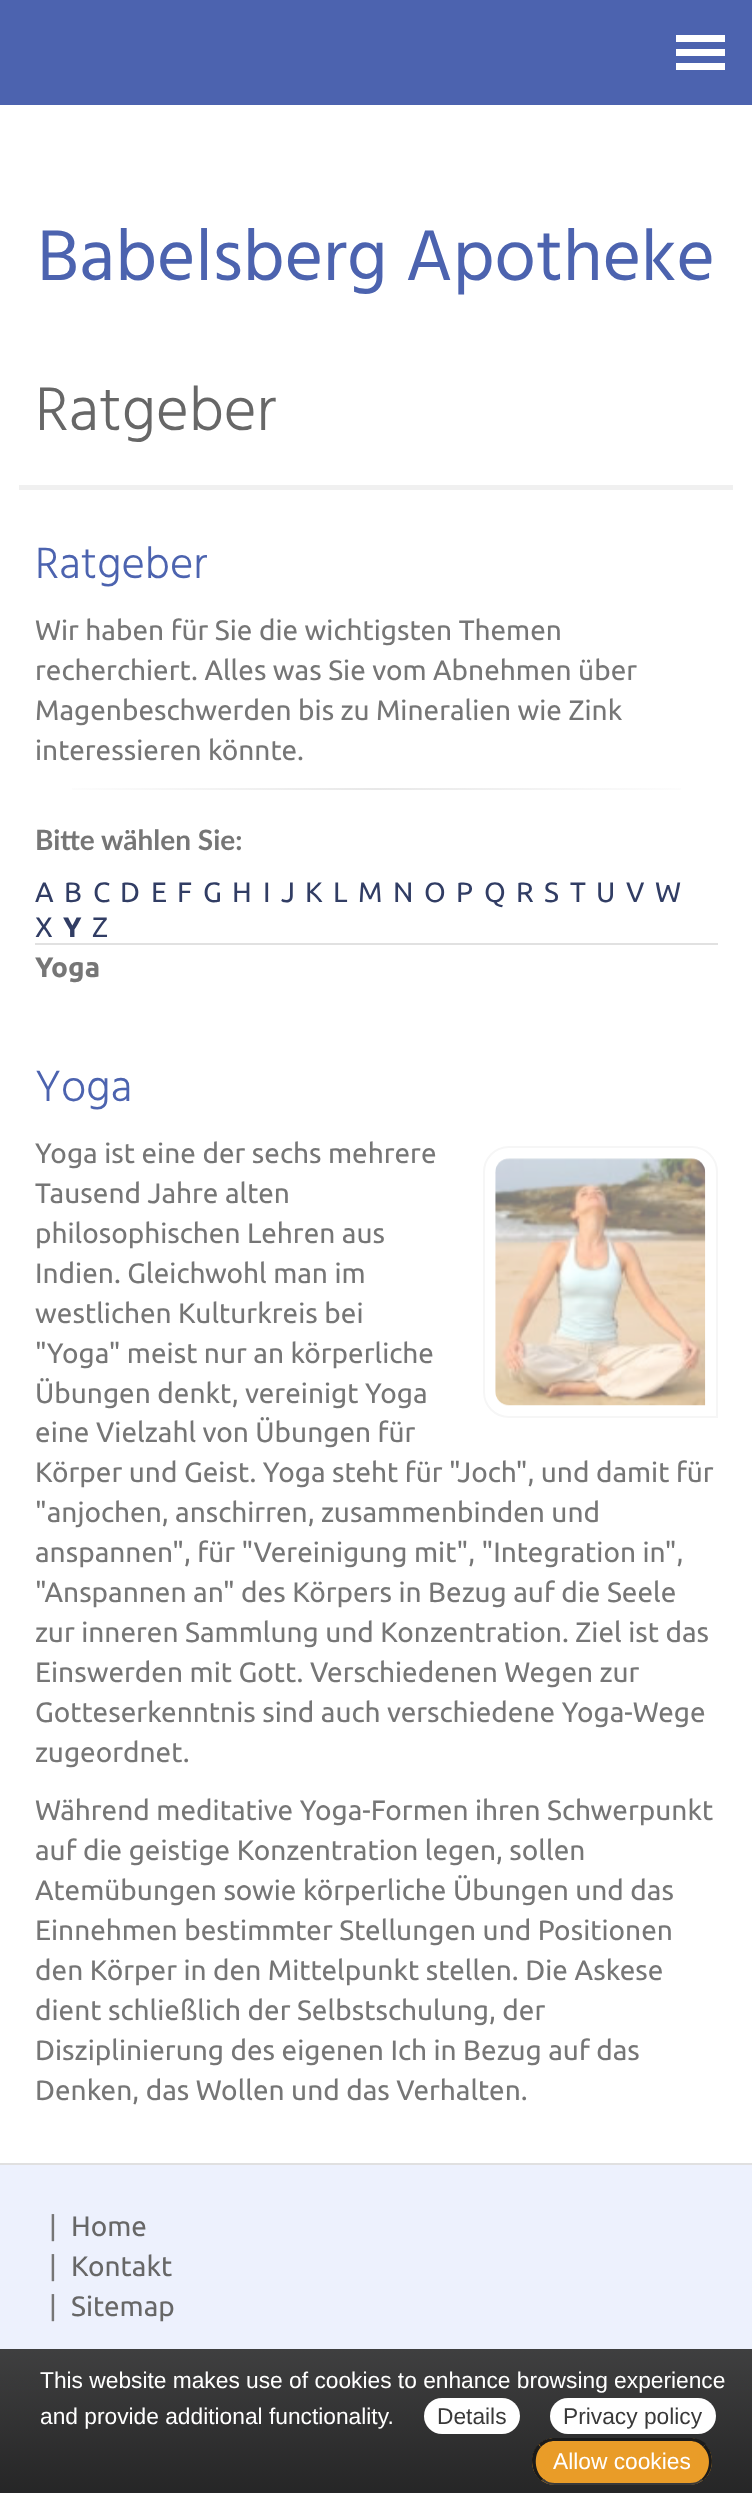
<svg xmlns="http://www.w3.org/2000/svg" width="752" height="2493">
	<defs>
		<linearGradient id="g1" gradientUnits="userSpaceOnUse" x1="35" y1="788" x2="718" y2="788"><stop offset="0" stop-color="#FFFFFF" /><stop offset="0.5" stop-color="#E8E8E8" /><stop offset="1" stop-color="#FFFFFF" /></linearGradient>
		<linearGradient id="g2" gradientUnits="userSpaceOnUse" x1="376" y1="2349" x2="376" y2="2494"><stop offset="0" stop-color="#363636" stop-opacity="0.95" /><stop offset="1" stop-color="#1B1B1B" stop-opacity="0.95" /></linearGradient>
	</defs>
	<rect width="100%" height="100%" fill="#FFFFFF" />
	<rect x="0" y="0" width="752" height="105" fill="#4C63AF" />
	<rect x="676" y="35" width="49" height="7" fill="#FFFFFF" />
	<rect x="676" y="49" width="49" height="7" fill="#FFFFFF" />
	<rect x="676" y="63" width="49" height="7" fill="#FFFFFF" />
	<text x="37" y="280" font-family="Hind" font-size="73.5" fill="#4C63AF">Babelsberg Apotheke</text>
	<rect x="19" y="485" width="714" height="5" fill="#F0F0F0" />
	<text x="35" y="430" font-family="Hind" font-size="63" font-weight="300" fill="#676767">Ratgeber</text>
	<text x="35" y="578" font-family="Hind" font-size="45" font-weight="300" fill="#4C63AF">Ratgeber</text>
	<g font-family="Ubuntu" font-size="28" fill="#767676">
		<text x="35" y="640">Wir haben für Sie die wichtigsten Themen</text>
		<text x="35" y="680">recherchiert. Alles was Sie vom Abnehmen über</text>
		<text x="35" y="720">Magenbeschwerden bis zu Mineralien wie Zink</text>
		<text x="35" y="760">interessieren könnte.</text>
	</g>
	<rect x="72" y="788" width="609" height="2" fill="url(#g1)" />
	<text x="35" y="850" font-family="Lato" font-size="28" font-weight="700" fill="#767676">Bitte wählen Sie:</text>
	<g font-family="Ubuntu" font-size="28" fill="#313D64">
		<text x="35" y="902">A</text>
		<text x="64" y="902">B</text>
		<text x="93" y="902">C</text>
		<text x="120" y="902">D</text>
		<text x="151" y="902">E</text>
		<text x="177" y="902">F</text>
		<text x="203" y="902">G</text>
		<text x="232" y="902">H</text>
		<text x="263" y="902">I</text>
		<text x="281" y="902">J</text>
		<text x="305" y="902">K</text>
		<text x="333" y="902">L</text>
		<text x="358" y="902">M</text>
		<text x="393" y="902">N</text>
		<text x="424" y="902">O</text>
		<text x="456" y="902">P</text>
		<text x="484" y="902">Q</text>
		<text x="516" y="902">R</text>
		<text x="544" y="902">S</text>
		<text x="570" y="902">T</text>
		<text x="596" y="902">U</text>
		<text x="626" y="902">V</text>
		<text x="655" y="902">W</text>
		<text x="35" y="937">X</text>
	</g>
	<text x="63" y="937" font-family="Ubuntu" font-size="28" font-weight="700" fill="#313D64">Y</text>
	<text x="92" y="937" font-family="Ubuntu" font-size="28" fill="#313D64">Z</text>
	<rect x="35" y="943" width="683" height="2" fill="#E1E1E1" />
	<text x="35" y="977" font-family="Ubuntu" font-size="28" font-weight="700" fill="#767676">Yoga</text>
	<text x="35" y="1101" font-family="Hind" font-size="45" font-weight="300" fill="#4C63AF">Yoga</text>
	<g font-family="Ubuntu" font-size="28" fill="#767676">
		<text x="35" y="1163">Yoga ist eine der sechs mehrere</text>
		<text x="35" y="1203">Tausend Jahre alten</text>
		<text x="35" y="1243">philosophischen Lehren aus</text>
		<text x="35" y="1283">Indien. Gleichwohl man im</text>
		<text x="35" y="1323">westlichen Kulturkreis bei</text>
		<text x="35" y="1363">"Yoga" meist nur an körperliche</text>
		<text x="35" y="1403">Übungen denkt, vereinigt Yoga</text>
		<text x="35" y="1442">eine Vielzahl von Übungen für</text>
		<text x="35" y="1482">Körper und Geist. Yoga steht für "Joch", und damit für</text>
		<text x="35" y="1522">"anjochen, anschirren, zusammenbinden und</text>
		<text x="35" y="1562">anspannen", für "Vereinigung mit", "Integration in",</text>
		<text x="35" y="1602">"Anspannen an" des Körpers in Bezug auf die Seele</text>
		<text x="35" y="1642">zur inneren Sammlung und Konzentration. Ziel ist das</text>
		<text x="35" y="1682">Einswerden mit Gott. Verschiedenen Wegen zur</text>
		<text x="35" y="1722">Gotteserkenntnis sind auch verschiedene Yoga-Wege</text>
		<text x="35" y="1762">zugeordnet.</text>
	</g>
	<path d="M509 1147H692C706 1147 717 1158 717 1172V1417H509C495 1417 484 1406 484 1392V1172C484 1158 495 1147 509 1147Z" fill="none" stroke="#F6F6F6" stroke-width="2" />
	<image x="495" y="1158" width="211" height="248" href="assets/img1.png" />
	<g font-family="Ubuntu" font-size="28" fill="#767676">
		<text x="35" y="1820">Während meditative Yoga-Formen ihren Schwerpunkt</text>
		<text x="35" y="1860">auf die geistige Konzentration legen, sollen</text>
		<text x="35" y="1900">Atemübungen sowie körperliche Übungen und das</text>
		<text x="35" y="1940">Einnehmen bestimmter Stellungen und Positionen</text>
		<text x="35" y="1980">den Körper in den Mittelpunkt stellen. Die Askese</text>
		<text x="35" y="2020">dient schließlich der Selbstschulung, der</text>
		<text x="35" y="2060">Disziplinierung des eigenen Ich in Bezug auf das</text>
		<text x="35" y="2100">Denken, das Wollen und das Verhalten.</text>
	</g>
	<rect x="0" y="2165" width="752" height="328" fill="#EDF1FD" />
	<rect x="0" y="2163" width="752" height="2" fill="#E0E0E0" />
	<text x="49" y="2236" font-family="Ubuntu" font-size="28" fill="#767676">|</text>
	<text x="71" y="2236" font-family="Ubuntu" font-size="28" fill="#676767">Home</text>
	<text x="49" y="2276" font-family="Ubuntu" font-size="28" fill="#767676">|</text>
	<text x="71" y="2276" font-family="Ubuntu" font-size="28" fill="#676767">Kontakt</text>
	<text x="49" y="2316" font-family="Ubuntu" font-size="28" fill="#767676">|</text>
	<text x="71" y="2316" font-family="Ubuntu" font-size="28" fill="#676767">Sitemap</text>
	<rect x="0" y="2349" width="752" height="144" fill="url(#g2)" />
	<g font-family="Liberation Sans" font-size="22.75" fill="#FFFFFF">
		<text x="40" y="2388">This website makes use of cookies to enhance browsing experience</text>
		<text x="40" y="2424">and provide additional functionality.</text>
	</g>
	<rect x="424" y="2398" width="96" height="36" rx="18" fill="#FFFFFF" />
	<text x="437" y="2424" font-family="Liberation Sans" font-size="22.75" fill="#393939">Details</text>
	<rect x="550" y="2398" width="166" height="36" rx="18" fill="#FFFFFF" />
	<text x="563" y="2424" font-family="Liberation Sans" font-size="22.75" fill="#393939">Privacy policy</text>
	<rect x="532" y="2438" width="180" height="47" rx="23" fill="#E99C28" />
	<path d="M555 2438C549 2438 543 2440 539 2444L541 2447C545 2443 549 2441 555 2441H690C695 2441 700 2443 703 2447L706 2444C702 2440 696 2438 690 2438Z" fill="#1B1B1B" />
	<path d="M705.5 2444.5C715 2454 714 2472 703 2480.5L701 2479.5C710.5 2471.5 712 2455.5 703 2447Z" fill="#1B1B1B" />
	<path d="M555 2485H690C695 2485 699 2483 703 2480L701 2479C698 2482 694 2483 690 2483H555C551 2483 547 2482 544 2479L541 2480C545 2483 550 2485 555 2485Z" fill="#393939" />
	<path d="M532 2460C532 2468 534.5 2475.5 541 2480.5L543.5 2479C534.5 2472 533 2455.5 541 2447L538.5 2444.5C534.5 2448.5 532 2454 532 2460Z" fill="#1B1B1B" />
	<text x="553" y="2469" font-family="Liberation Sans" font-size="22.75" fill="#FFFFFF">Allow cookies</text>
</svg>
